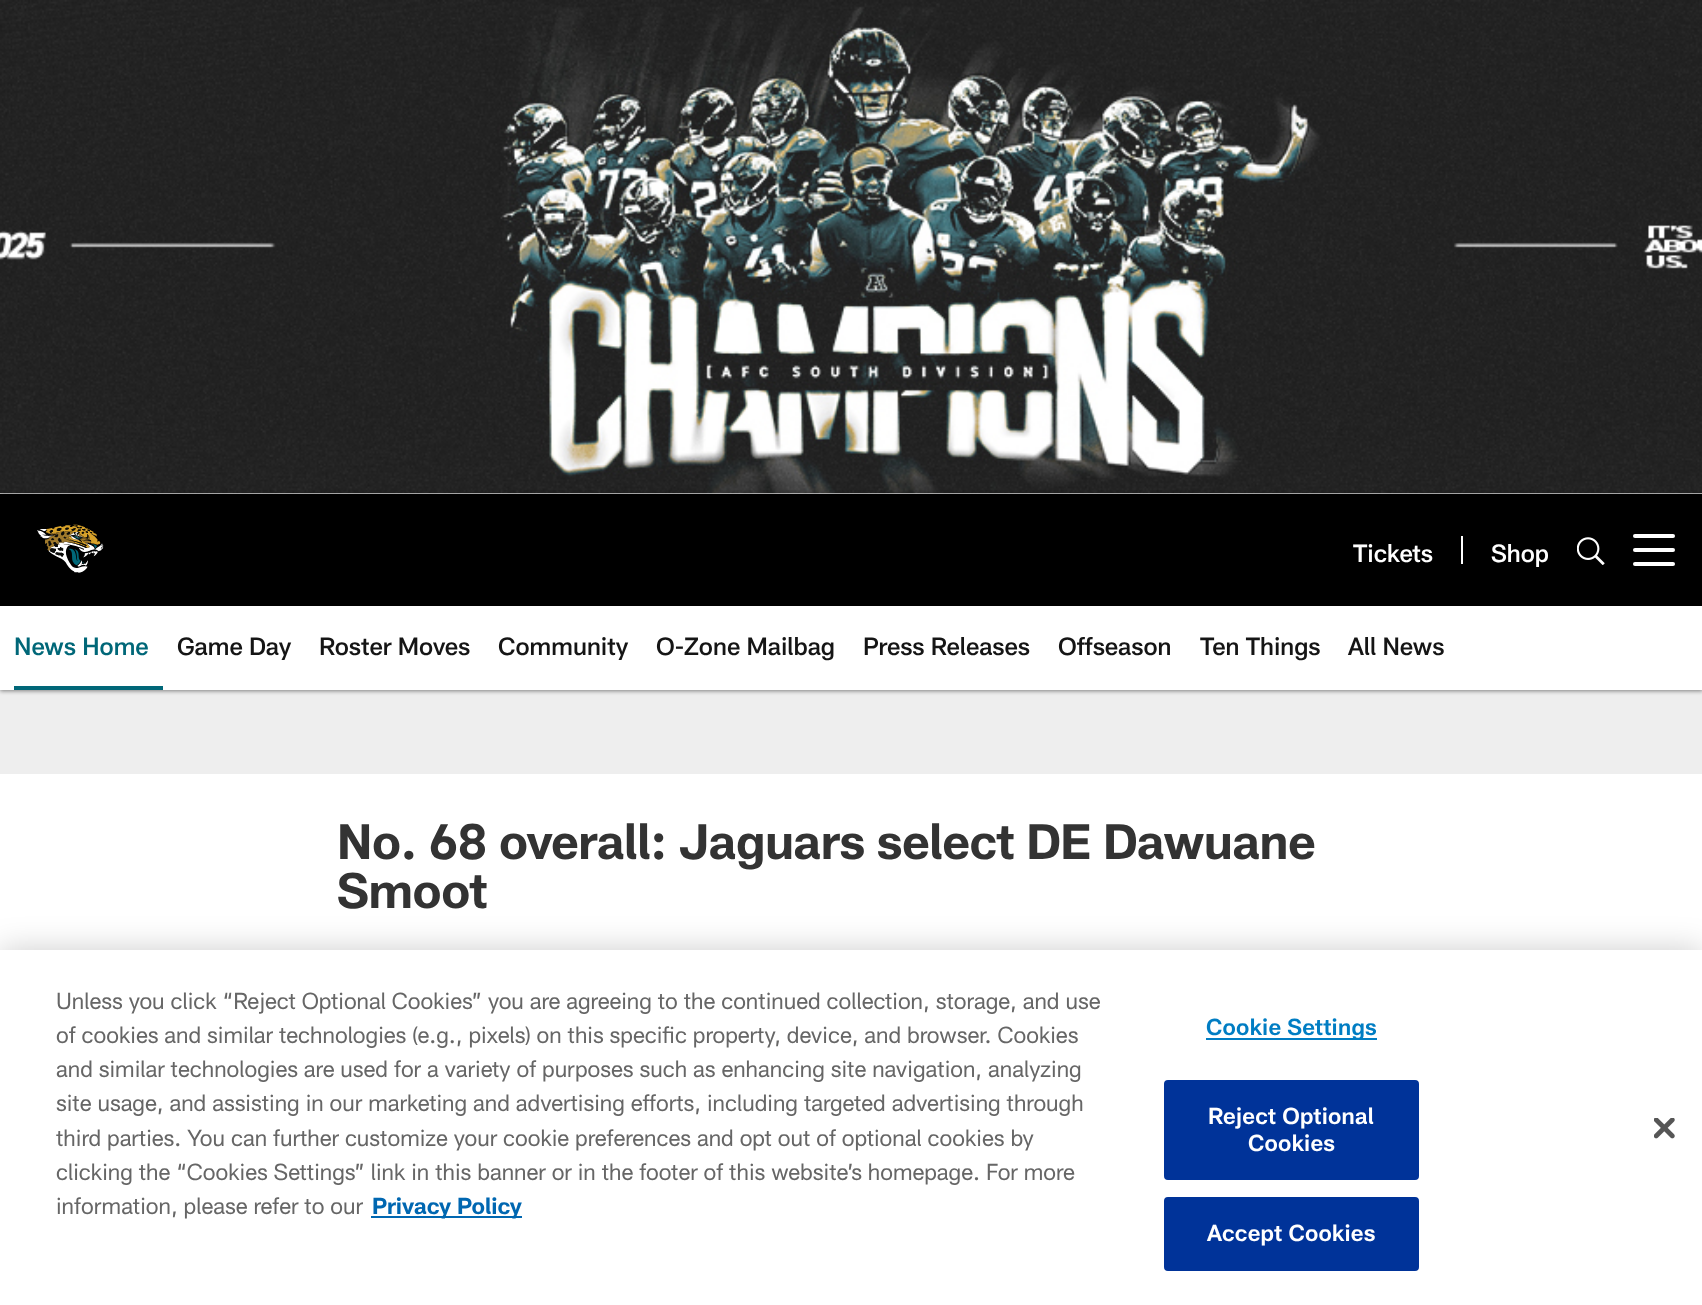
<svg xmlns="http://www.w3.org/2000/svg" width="1702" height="1305">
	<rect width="100%" height="100%" fill="#EEEEEE" />
	<image x="0" y="0" width="1702" height="494" href="assets/img1.png" />
	<rect x="0" y="495" width="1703" height="112" fill="#000000" fill-opacity="0.47" filter="blur(2px)" />
	<rect x="0" y="494" width="1702" height="112" fill="#000000" />
	<image x="37" y="524" width="67" height="49" href="assets/img2.png" />
	<text x="1353" y="562" font-family="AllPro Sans" font-size="24.5" font-weight="500" fill="#FFFFFF">Tickets</text>
	<rect x="1461" y="536" width="2" height="28" fill="#FFFFFF" />
	<text x="1491" y="562" font-family="AllPro Sans" font-size="24.5" font-weight="500" fill="#FFFFFF">Shop</text>
	<image x="1577" y="537" width="28" height="28" href="assets/img3.png" />
	<rect x="1633" y="548" width="42" height="4" rx="2" fill="#FFFFFF" />
	<rect x="1633" y="534" width="42" height="4" rx="2" fill="#FFFFFF" />
	<rect x="1633" y="562" width="42" height="4" rx="2" fill="#FFFFFF" />
	<rect x="0" y="607" width="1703" height="84" fill="#000000" fill-opacity="0.47" filter="blur(2px)" />
	<rect x="0" y="606" width="1702" height="84" fill="#FFFFFF" />
	<rect x="14" y="686" width="149" height="4" fill="#006778" />
	<text x="14" y="655" font-family="AllPro Sans" font-size="24.5" font-weight="500" fill="#006778">News Home</text>
	<g font-family="AllPro Sans" font-size="24.5" font-weight="500" fill="#151515">
		<text x="177" y="655">Game Day</text>
		<text x="319" y="655">Roster Moves</text>
		<text x="498" y="655">Community</text>
		<text x="656" y="655">O-Zone Mailbag</text>
		<text x="863" y="655">Press Releases</text>
		<text x="1058" y="655">Offseason</text>
		<text x="1200" y="655">Ten Things</text>
		<text x="1348" y="655">All News</text>
	</g>
	<rect x="0" y="774" width="1702" height="176" fill="#FFFFFF" />
	<g font-family="AllPro Sans" font-size="49" font-weight="700" letter-spacing="-0.35" fill="#333333">
		<text x="337" y="859">No. 68 overall: Jaguars select DE Dawuane</text>
		<text x="337" y="908">Smoot</text>
	</g>
	<rect x="0" y="950" width="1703" height="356" fill="#000000" fill-opacity="0.2" filter="blur(16px)" />
	<rect x="0" y="950" width="1702" height="355" fill="#FFFFFF" />
	<g font-family="AllPro Sans" font-size="22.75" fill="#666666">
		<text x="56" y="1009">Unless you click “Reject Optional Cookies” you are agreeing to the continued collection, storage, and use</text>
		<text x="56" y="1043">of cookies and similar technologies (e.g., pixels) on this specific property, device, and browser. Cookies</text>
		<text x="56" y="1077">and similar technologies are used for a variety of purposes such as enhancing site navigation, analyzing</text>
		<text x="56" y="1111">site usage, and assisting in our marketing and advertising efforts, including targeted advertising through</text>
		<text x="56" y="1146">third parties. You can further customize your cookie preferences and opt out of optional cookies by</text>
		<text x="56" y="1180">clicking the “Cookies Settings” link in this banner or in the footer of this website’s homepage. For more</text>
		<text x="56" y="1214">information, please refer to our</text>
	</g>
	<rect x="371" y="1216" width="151" height="2" fill="#0067B1" />
	<text x="372" y="1214" font-family="AllPro Sans" font-size="22.75" font-weight="700" fill="#0067B1">Privacy Policy</text>
	<rect x="1206" y="1038" width="171" height="2" fill="#007DC3" />
	<text x="1206" y="1035" font-family="AllPro Sans" font-size="22.75" font-weight="600" letter-spacing="0.25" fill="#007DC3">Cookie Settings</text>
	<rect x="1165" y="1081" width="253" height="98" rx="3" fill="#003399" stroke="#003399" stroke-width="2" />
	<g font-family="AllPro Sans" font-size="22.75" font-weight="600" letter-spacing="0.25" fill="#FFFFFF">
		<text x="1208" y="1124">Reject Optional</text>
		<text x="1248" y="1151">Cookies</text>
	</g>
	<rect x="1165" y="1198" width="253" height="72" rx="3" fill="#003399" stroke="#003399" stroke-width="2" />
	<text x="1207" y="1241" font-family="AllPro Sans" font-size="22.75" font-weight="600" letter-spacing="0.25" fill="#FFFFFF">Accept Cookies</text>
	<image x="1654" y="1118" width="21" height="21" href="assets/img4.png" />
</svg>
